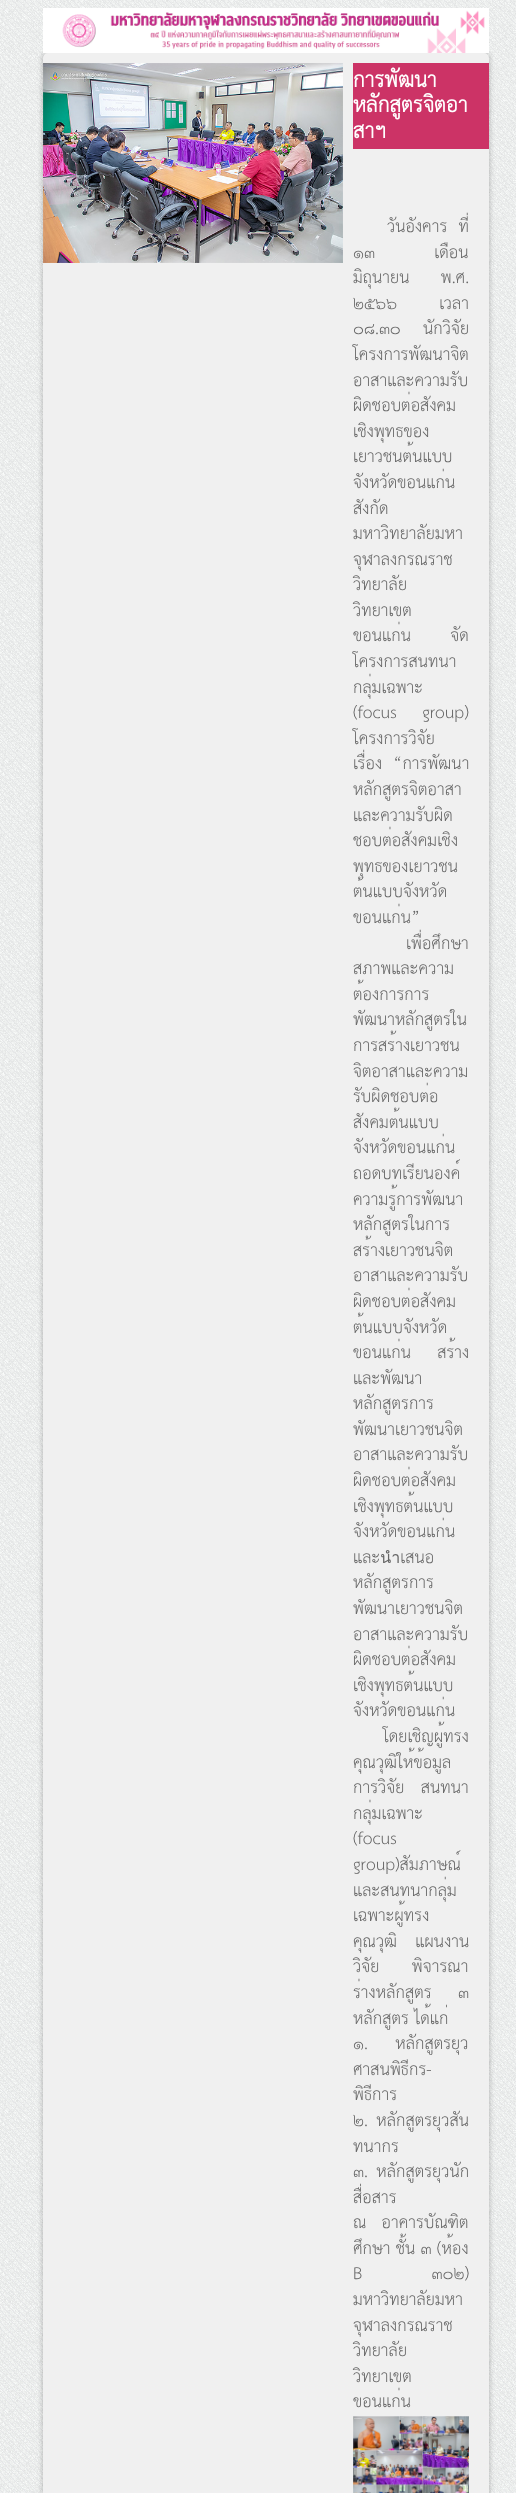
<svg xmlns="http://www.w3.org/2000/svg" width="516" height="2493">
	<rect width="100%" height="100%" fill="#FFFFFF" />
	<image x="0" y="0" width="516" height="2493" href="assets/img1.png" />
	<rect x="42" y="52" width="448" height="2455" rx="6" fill="#000000" fill-opacity="0.2" filter="blur(2.5px)" />
	<image x="43" y="8" width="446" height="45" href="assets/img2.png" />
	<rect x="43" y="53" width="446" height="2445" rx="5" fill="#F0F0F0" />
	<image x="43" y="63" width="300" height="200" href="assets/img3.png" />
	<rect x="353" y="63" width="136" height="86" fill="#CC3366" />
	<g font-family="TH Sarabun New" font-size="20" font-weight="700" fill="#FFFFFF">
		<text x="353" y="87">การพัฒนา</text>
		<text x="353" y="112">หลักสูตรจิตอา</text>
		<text x="353" y="138">สาฯ</text>
	</g>
	<g font-family="TH Sarabun New" font-size="16" fill="#666666">
		<text x="387" y="232" word-spacing="6">วันอังคาร ที่</text>
		<text x="353" y="258" word-spacing="54">๑๓ เดือน</text>
		<text x="353" y="283" word-spacing="26">มิถุนายน พ.ศ.</text>
		<text x="353" y="309" word-spacing="37">๒๕๖๖ เวลา</text>
		<text x="353" y="334" word-spacing="17">๐๘.๓๐ นักวิจัย</text>
		<text x="353" y="360">โครงการพัฒนาจิต</text>
		<text x="353" y="386">อาสาและความรับ</text>
		<text x="353" y="411">ผิดชอบต่อสังคม</text>
		<text x="353" y="437">เชิงพุทธของ</text>
		<text x="353" y="462">เยาวชนต้นแบบ</text>
		<text x="353" y="488">จังหวัดขอนแก่น</text>
		<text x="353" y="514">สังกัด</text>
		<text x="353" y="539">มหาวิทยาลัยมหา</text>
		<text x="353" y="565">จุฬาลงกรณราช</text>
		<text x="353" y="590">วิทยาลัย</text>
		<text x="353" y="616">วิทยาเขต</text>
		<text x="353" y="641" word-spacing="34">ขอนแก่น จัด</text>
		<text x="353" y="667">โครงการสนทนา</text>
		<text x="353" y="693">กลุ่มเฉพาะ</text>
		<text x="353" y="718" word-spacing="20">(focus group)</text>
		<text x="353" y="744">โครงการวิจัย</text>
		<text x="353" y="769" word-spacing="6">เรื่อง “การพัฒนา</text>
		<text x="353" y="795">หลักสูตรจิตอาสา</text>
		<text x="353" y="821">และความรับผิด</text>
		<text x="353" y="846">ชอบต่อสังคมเชิง</text>
		<text x="353" y="872">พุทธของเยาวชน</text>
		<text x="353" y="897">ต้นแบบจังหวัด</text>
		<text x="353" y="923">ขอนแก่น”</text>
		<text x="406" y="949">เพื่อศึกษา</text>
		<text x="353" y="974">สภาพและความ</text>
		<text x="353" y="1000">ต้องการการ</text>
		<text x="353" y="1025">พัฒนาหลักสูตรใน</text>
		<text x="353" y="1051">การสร้างเยาวชน</text>
		<text x="353" y="1077">จิตอาสาและความ</text>
		<text x="353" y="1102">รับผิดชอบต่อ</text>
		<text x="353" y="1128">สังคมต้นแบบ</text>
		<text x="353" y="1153">จังหวัดขอนแก่น</text>
		<text x="353" y="1179">ถอดบทเรียนองค์</text>
		<text x="353" y="1205">ความรู้การพัฒนา</text>
		<text x="353" y="1230">หลักสูตรในการ</text>
		<text x="353" y="1256">สร้างเยาวชนจิต</text>
		<text x="353" y="1281">อาสาและความรับ</text>
		<text x="353" y="1307">ผิดชอบต่อสังคม</text>
		<text x="353" y="1333">ต้นแบบจังหวัด</text>
		<text x="353" y="1358" word-spacing="21">ขอนแก่น สร้าง</text>
		<text x="353" y="1384">และพัฒนา</text>
		<text x="353" y="1409">หลักสูตรการ</text>
		<text x="353" y="1435">พัฒนาเยาวชนจิต</text>
		<text x="353" y="1460">อาสาและความรับ</text>
		<text x="353" y="1486">ผิดชอบต่อสังคม</text>
		<text x="353" y="1512">เชิงพุทธต้นแบบ</text>
		<text x="353" y="1537">จังหวัดขอนแก่น</text>
		<text x="353" y="1563">และนำเสนอ</text>
		<text x="353" y="1588">หลักสูตรการ</text>
		<text x="353" y="1614">พัฒนาเยาวชนจิต</text>
		<text x="353" y="1640">อาสาและความรับ</text>
		<text x="353" y="1665">ผิดชอบต่อสังคม</text>
		<text x="353" y="1691">เชิงพุทธต้นแบบ</text>
		<text x="353" y="1716">จังหวัดขอนแก่น</text>
		<text x="383" y="1742">โดยเชิญผู้ทรง</text>
		<text x="353" y="1768">คุณวุฒิให้ข้อมูล</text>
		<text x="353" y="1793" word-spacing="11">การวิจัย สนทนา</text>
		<text x="353" y="1819">กลุ่มเฉพาะ</text>
		<text x="353" y="1844">(focus</text>
		<text x="353" y="1870">group)สัมภาษณ์</text>
		<text x="353" y="1896">และสนทนากลุ่ม</text>
		<text x="353" y="1921">เฉพาะผู้ทรง</text>
		<text x="353" y="1947" word-spacing="13">คุณวุฒิ แผนงาน</text>
		<text x="353" y="1972" word-spacing="11" xml:space="preserve">วิจัย  พิจารณา</text>
		<text x="353" y="1998" word-spacing="21">ร่างหลักสูตร ๓</text>
		<text x="353" y="2024">หลักสูตร ได้แก่</text>
		<text x="353" y="2049" word-spacing="22">๑. หลักสูตรยุว</text>
		<text x="353" y="2075">ศาสนพิธีกร-</text>
		<text x="353" y="2100">พิธีการ</text>
		<text x="353" y="2126" word-spacing="3">๒. หลักสูตรยุวสัน</text>
		<text x="353" y="2152">ทนากร</text>
		<text x="353" y="2177" word-spacing="3">๓. หลักสูตรยุวนัก</text>
		<text x="353" y="2203">สื่อสาร</text>
		<text x="353" y="2228" word-spacing="10">ณ อาคารบัณฑิต</text>
		<text x="353" y="2254">ศึกษา ชั้น ๓ (ห้อง</text>
		<text x="353" y="2279" word-spacing="64">B ๓๐๒)</text>
		<text x="353" y="2305">มหาวิทยาลัยมหา</text>
		<text x="353" y="2331">จุฬาลงกรณราช</text>
		<text x="353" y="2356">วิทยาลัย</text>
		<text x="353" y="2382">วิทยาเขต</text>
		<text x="353" y="2407">ขอนแก่น</text>
	</g>
	<image x="353" y="2416" width="116" height="77" href="assets/img4.png" />
</svg>
